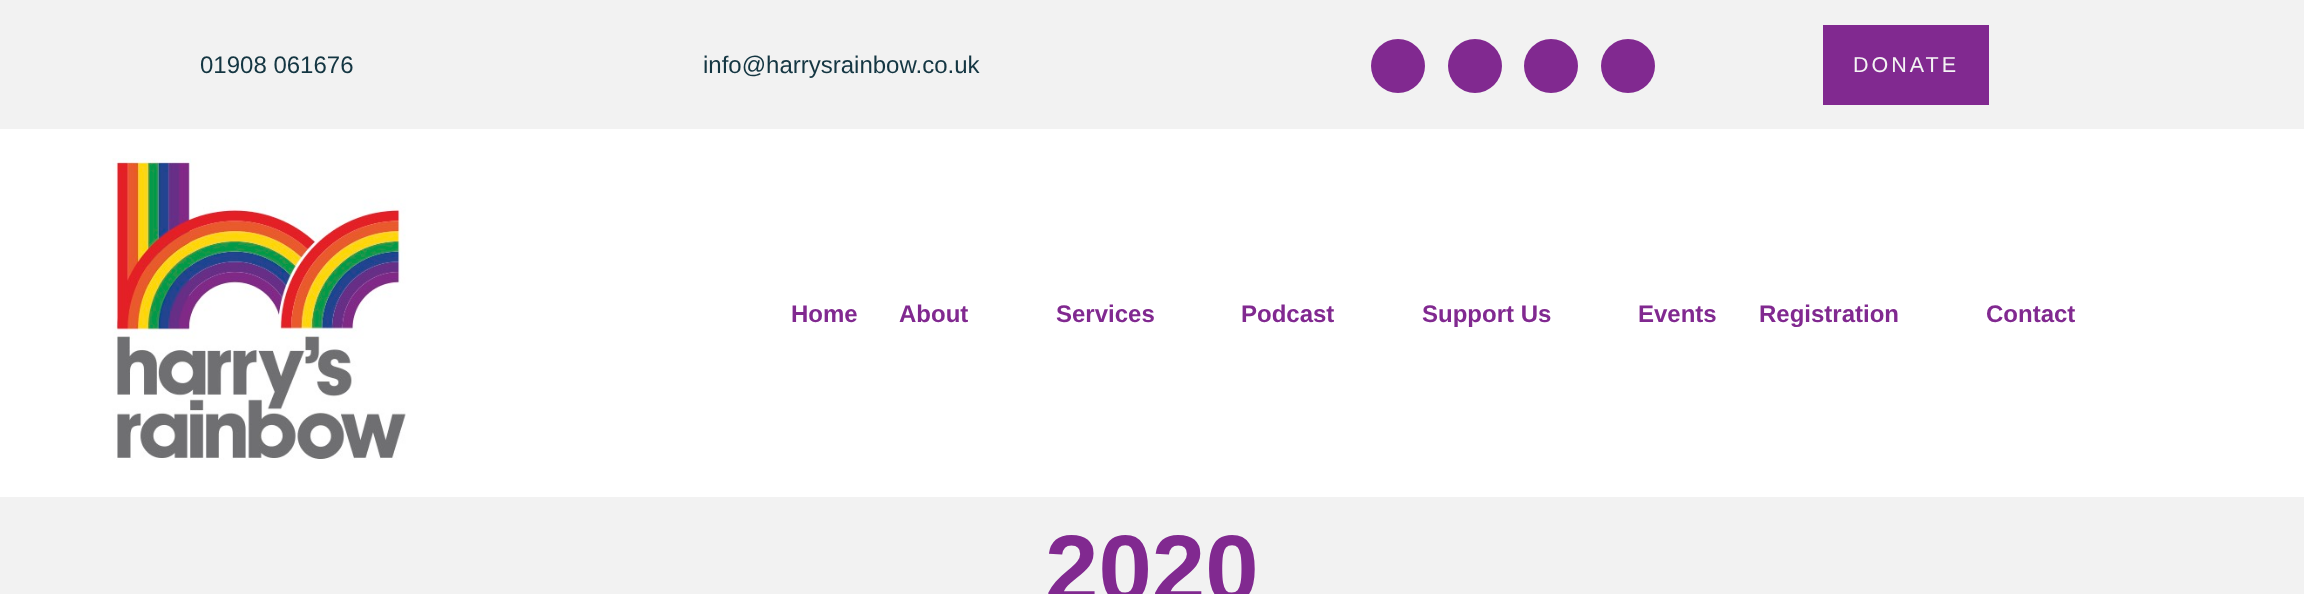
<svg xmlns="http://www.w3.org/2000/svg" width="2304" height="594">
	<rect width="100%" height="100%" fill="#F2F2F2" />
	<g font-family="Liberation Sans" font-size="24" fill="#143642">
		<text x="200" y="73">01908 061676</text>
		<text x="703" y="73">info@harrysrainbow.co.uk</text>
	</g>
	<circle cx="1398" cy="66" r="27" fill="#812990" />
	<circle cx="1475" cy="66" r="27" fill="#812990" />
	<circle cx="1551" cy="66" r="27" fill="#812990" />
	<circle cx="1628" cy="66" r="27" fill="#812990" />
	<rect x="1823" y="25" width="166" height="80" fill="#812990" />
	<text x="1853" y="72" font-family="Liberation Sans" font-size="21.5" letter-spacing="3" fill="#F4F4F4">DONATE</text>
	<rect x="0" y="129" width="2304" height="368" fill="#FFFFFF" />
	<image x="112" y="158" width="294" height="302" href="assets/img1.png" />
	<g font-family="Liberation Sans" font-size="24" font-weight="700" fill="#812990">
		<text x="791" y="322">Home</text>
		<text x="899" y="322">About</text>
		<text x="1056" y="322">Services</text>
		<text x="1241" y="322">Podcast</text>
		<text x="1422" y="322">Support Us</text>
		<text x="1638" y="322">Events</text>
		<text x="1759" y="322">Registration</text>
		<text x="1986" y="322">Contact</text>
	</g>
	<text x="1045" y="602" font-family="Liberation Sans" font-size="96" font-weight="700" fill="#812990">2020</text>
</svg>
